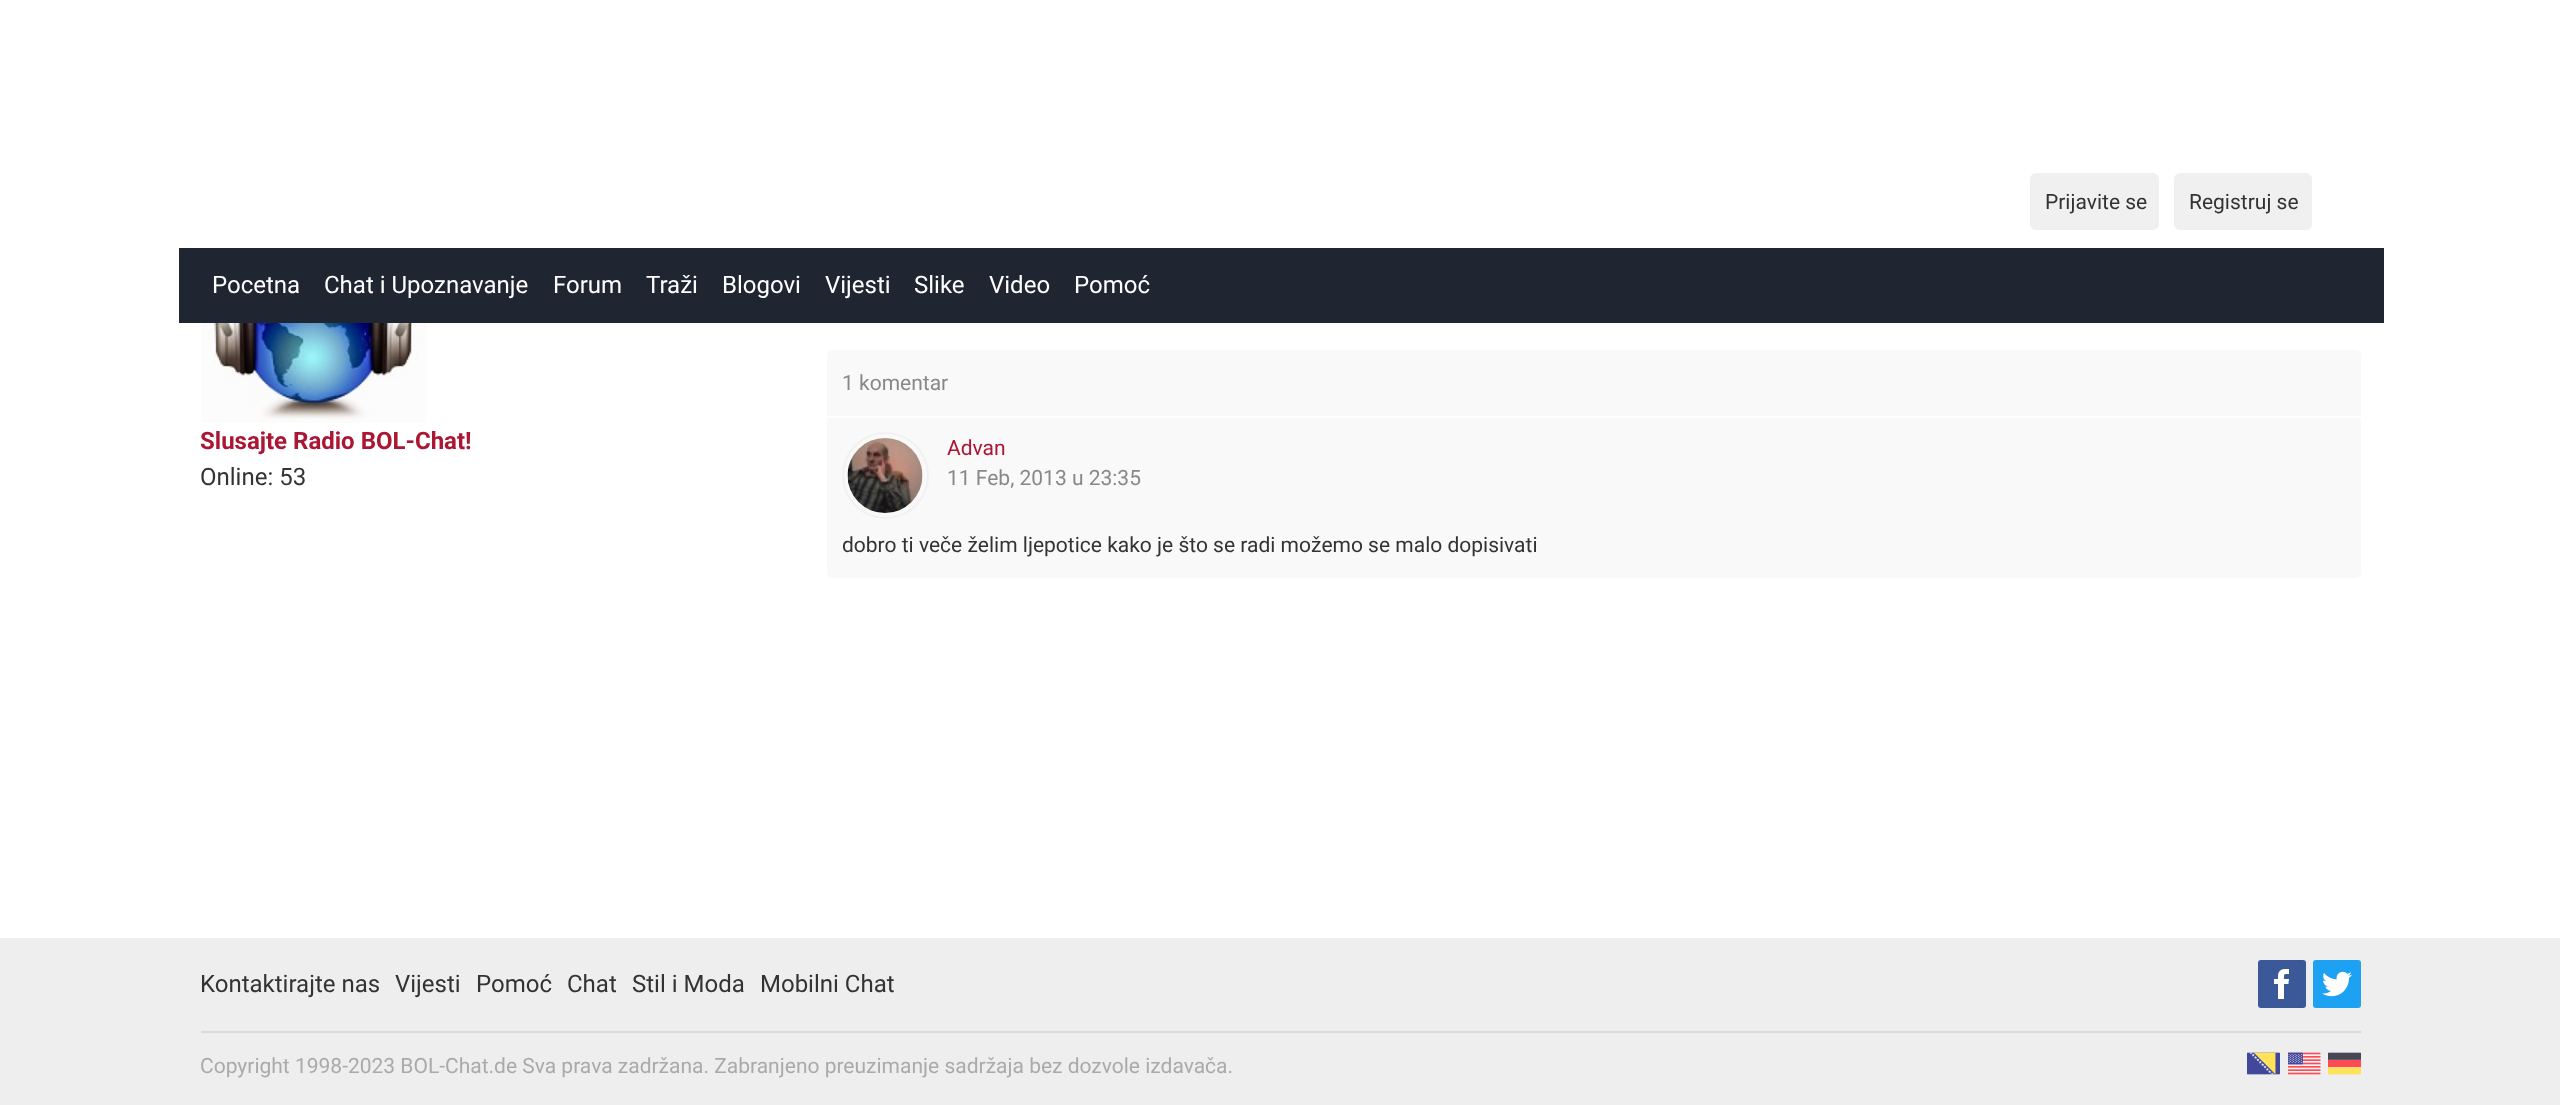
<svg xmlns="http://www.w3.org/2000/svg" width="2560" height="1105">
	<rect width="100%" height="100%" fill="#FFFFFF" />
	<rect x="179" y="248" width="2205" height="75" fill="#1F2632" />
	<rect x="2030" y="173" width="129" height="57" rx="6" fill="#F0F0F0" />
	<text x="2045" y="209" font-family="Roboto" font-size="21" fill="#333333">Prijavite se</text>
	<rect x="2174" y="173" width="138" height="57" rx="6" fill="#F0F0F0" />
	<text x="2189" y="209" font-family="Roboto" font-size="21" fill="#333333">Registruj se</text>
	<g font-family="Roboto" font-size="24" fill="#FFFFFF">
		<text x="212" y="293">Pocetna</text>
		<text x="324" y="293">Chat i Upoznavanje</text>
		<text x="553" y="293">Forum</text>
		<text x="646" y="293">Traži</text>
		<text x="722" y="293">Blogovi</text>
		<text x="825" y="293">Vijesti</text>
		<text x="914" y="293">Slike</text>
		<text x="989" y="293">Video</text>
		<text x="1074" y="293">Pomoć</text>
	</g>
	<image x="201" y="323" width="225" height="100" href="assets/img1.png" />
	<text x="200" y="449" font-family="Roboto" font-size="24" font-weight="700" fill="#AB1634">Slusajte Radio BOL-Chat!</text>
	<text x="200" y="485" font-family="Roboto" font-size="24" fill="#333333">Online: 53</text>
	<rect x="827" y="350" width="1534" height="228" rx="5" fill="#F9F9F9" />
	<rect x="827" y="416" width="1534" height="2" fill="#FFFFFF" />
	<text x="842" y="390" font-family="Roboto" font-size="21" fill="#888888">1 komentar</text>
	<circle cx="885.5" cy="475.5" r="42.5" fill="none" stroke="#F1F1F1" stroke-width="2" />
	<image x="847" y="438" width="76" height="75" href="assets/img2.png" />
	<text x="947" y="455" font-family="Roboto" font-size="21" fill="#AB1634">Advan</text>
	<text x="947" y="485" font-family="Roboto" font-size="21" fill="#888888">11 Feb, 2013 u 23:35</text>
	<text x="842" y="552" font-family="Roboto" font-size="21" fill="#333333">dobro ti veče želim ljepotice kako je što se radi možemo se malo dopisivati</text>
	<rect x="0" y="938" width="2560" height="167" fill="#EEEEEE" />
	<g font-family="Roboto" font-size="24" fill="#333333">
		<text x="200" y="992">Kontaktirajte nas</text>
		<text x="395" y="992">Vijesti</text>
		<text x="476" y="992">Pomoć</text>
		<text x="567" y="992">Chat</text>
		<text x="632" y="992">Stil i Moda</text>
		<text x="760" y="992">Mobilni Chat</text>
	</g>
	<rect x="2258" y="960" width="48" height="48" rx="3" fill="#3B5998" />
	<image x="2274" y="969" width="15" height="30" href="assets/img3.png" />
	<rect x="2313" y="960" width="48" height="48" rx="3" fill="#1DA1F2" />
	<image x="2322" y="971" width="30" height="26" href="assets/img4.png" />
	<rect x="201" y="1031" width="2160" height="2" fill="#DADADA" />
	<text x="200" y="1073" font-family="Roboto" font-size="21" fill="#AAAAAA">Copyright 1998-2023 BOL-Chat.de Sva prava zadržana. Zabranjeno preuzimanje sadržaja bez dozvole izdavača.</text>
	<image x="2247" y="1052" width="33" height="23" href="assets/img5.png" />
	<image x="2288" y="1052" width="33" height="23" href="assets/img6.png" />
	<image x="2328" y="1052" width="33" height="23" href="assets/img7.png" />
</svg>
